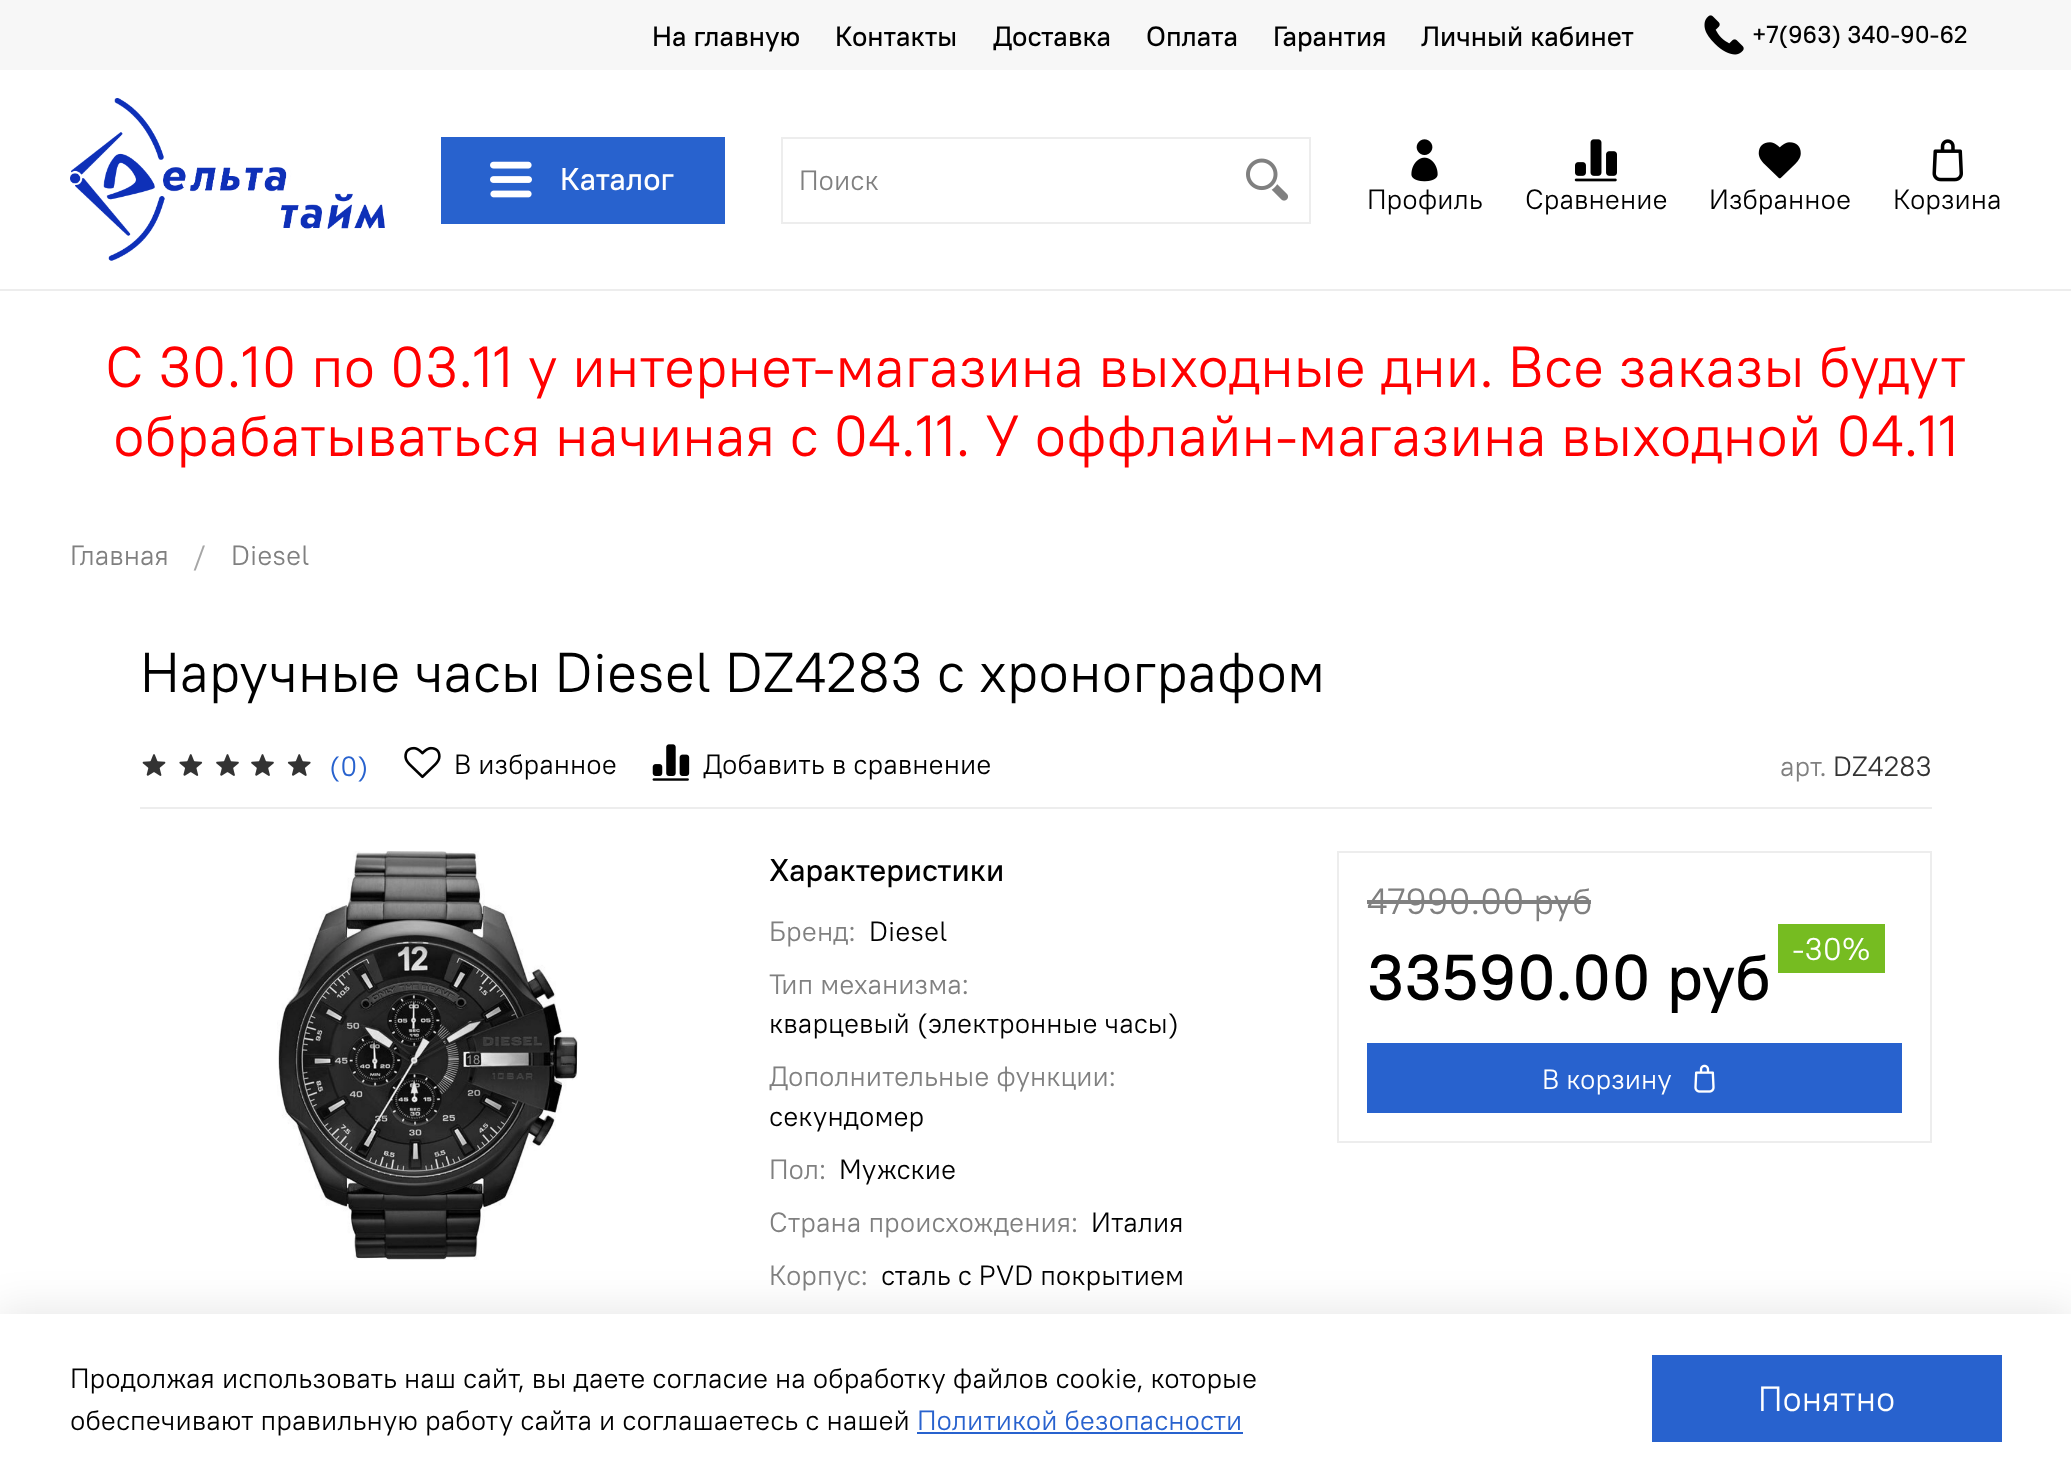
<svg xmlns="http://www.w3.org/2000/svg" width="2071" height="1484">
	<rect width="100%" height="100%" fill="#FFFFFF" />
	<rect x="0" y="0" width="2071" height="70" fill="#F7F7F7" />
	<g font-family="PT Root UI" font-size="28" font-weight="500" fill="#000000">
		<text x="652" y="46">На главную</text>
		<text x="835" y="46">Контакты</text>
		<text x="993" y="46">Доставка</text>
		<text x="1146" y="46">Оплата</text>
		<text x="1273" y="46">Гарантия</text>
		<text x="1421" y="46">Личный кабинет</text>
	</g>
	<image x="1704" y="15" width="40" height="40" href="assets/img1.png" />
	<text x="1752" y="43" font-family="PT Root UI" font-size="24.5" font-weight="500" fill="#000000">+7(963) 340-90-62</text>
	<rect x="0" y="289" width="2071" height="2" fill="#EDEDED" />
	<image x="70" y="98" width="315" height="163" href="assets/img2.png" />
	<rect x="441" y="137" width="284" height="87" fill="#2862CE" />
	<image x="490" y="161" width="42" height="37" href="assets/img3.png" />
	<text x="560" y="190" font-family="PT Root UI" font-size="31.5" font-weight="500" fill="#FFFFFF">Каталог</text>
	<rect x="781" y="137" width="530" height="2" fill="#EDEDED" />
	<rect x="781" y="222" width="442" height="2" fill="#EDEDED" />
	<rect x="781" y="137" width="2" height="87" fill="#EDEDED" />
	<text x="799" y="190" font-family="PT Root UI" font-size="28" fill="#808080">Поиск</text>
	<rect x="1309" y="137" width="2" height="87" fill="#EDEDED" />
	<rect x="1223" y="222" width="88" height="2" fill="#EDEDED" />
	<image x="1246" y="158" width="42" height="43" href="assets/img4.png" />
	<image x="1411" y="139" width="27" height="43" href="assets/img5.png" />
	<text x="1367" y="209" font-family="PT Root UI" font-size="28" fill="#000000">Профиль</text>
	<image x="1574" y="139" width="43" height="43" href="assets/img6.png" />
	<text x="1525" y="209" font-family="PT Root UI" font-size="28" fill="#000000">Сравнение</text>
	<image x="1758" y="142" width="43" height="37" href="assets/img7.png" />
	<text x="1709" y="209" font-family="PT Root UI" font-size="28" fill="#000000">Избранное</text>
	<image x="1932" y="139" width="31" height="43" href="assets/img8.png" />
	<text x="1893" y="209" font-family="PT Root UI" font-size="28" fill="#000000">Корзина</text>
	<g font-family="PT Root UI" font-size="57.75" fill="#FF0000">
		<text x="105" y="387">С 30.10 по 03.11 у интернет-магазина выходные дни. Все заказы будут</text>
		<text x="113" y="456">обрабатываться начиная с 04.11. У оффлайн-магазина выходной 04.11</text>
	</g>
	<text x="70" y="565" font-family="PT Root UI" font-size="28" fill="#808080">Главная</text>
	<text x="193" y="565" font-family="PT Root UI" font-size="28" fill="#A6A6A6">/</text>
	<text x="231" y="565" font-family="PT Root UI" font-size="28" fill="#808080">Diesel</text>
	<text x="140" y="692" font-family="PT Root UI" font-size="56" fill="#000000">Наручные часы Diesel DZ4283 с хронографом</text>
	<image x="142" y="754" width="24" height="22" href="assets/img9.png" />
	<image x="179" y="754" width="24" height="22" href="assets/img10.png" />
	<image x="216" y="754" width="23" height="22" href="assets/img11.png" />
	<image x="251" y="754" width="23" height="22" href="assets/img11.png" />
	<image x="287" y="754" width="24" height="22" href="assets/img12.png" />
	<text x="329" y="776" font-family="PT Root UI" font-size="28" fill="#2862CE">(0)</text>
	<image x="404" y="746" width="37" height="33" href="assets/img13.png" />
	<text x="454" y="774" font-family="PT Root UI" font-size="28" fill="#000000">В избранное</text>
	<image x="652" y="744" width="38" height="37" href="assets/img14.png" />
	<text x="703" y="774" font-family="PT Root UI" font-size="28" fill="#000000">Добавить в сравнение</text>
	<text x="1780" y="776" font-family="PT Root UI" font-size="28" fill="#808080">арт.</text>
	<text x="1833" y="776" font-family="PT Root UI" font-size="28" fill="#333333">DZ4283</text>
	<rect x="140" y="807" width="1792" height="2" fill="#EDEDED" />
	<image x="277" y="851" width="301" height="409" href="assets/img15.png" />
	<text x="769" y="881" font-family="PT Root UI" font-size="31.5" font-weight="500" fill="#000000">Характеристики</text>
	<text x="769" y="941" font-family="PT Root UI" font-size="28" fill="#808080">Бренд:</text>
	<text x="869" y="941" font-family="PT Root UI" font-size="28" fill="#000000">Diesel</text>
	<text x="769" y="994" font-family="PT Root UI" font-size="28" fill="#808080">Тип механизма:</text>
	<text x="769" y="1033" font-family="PT Root UI" font-size="28" fill="#000000">кварцевый (электронные часы)</text>
	<text x="769" y="1086" font-family="PT Root UI" font-size="28" fill="#808080">Дополнительные функции:</text>
	<text x="769" y="1126" font-family="PT Root UI" font-size="28" fill="#000000">секундомер</text>
	<text x="769" y="1179" font-family="PT Root UI" font-size="28" fill="#808080">Пол:</text>
	<text x="839" y="1179" font-family="PT Root UI" font-size="28" fill="#000000">Мужские</text>
	<text x="769" y="1232" font-family="PT Root UI" font-size="28" fill="#808080">Страна происхождения:</text>
	<text x="1091" y="1232" font-family="PT Root UI" font-size="28" fill="#000000">Италия</text>
	<text x="769" y="1285" font-family="PT Root UI" font-size="28" fill="#808080">Корпус:</text>
	<text x="881" y="1285" font-family="PT Root UI" font-size="28" fill="#000000">сталь с PVD покрытием</text>
	<rect x="1338" y="852" width="593" height="290" fill="none" stroke="#EDEDED" stroke-width="2" />
	<text x="1367" y="914" font-family="PT Root UI" font-size="36.5" fill="#808080">47990.00 руб</text>
	<rect x="1367" y="900" width="224" height="4" fill="#808080" />
	<rect x="1778" y="924" width="107" height="49" fill="#76BC21" />
	<text x="1792" y="960" font-family="PT Root UI" font-size="31.5" fill="#FFFFFF">-30%</text>
	<text x="1367" y="1000" font-family="PT Root UI" font-size="64.5" font-weight="500" fill="#000000">33590.00 руб</text>
	<rect x="1367" y="1043" width="535" height="70" fill="#2862CE" />
	<text x="1542" y="1089" font-family="PT Root UI" font-size="28" fill="#FFFFFF">В корзину</text>
	<image x="1694" y="1064" width="21" height="29" href="assets/img16.png" />
	<rect x="-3" y="1309" width="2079" height="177" fill="#000000" fill-opacity="0.09" filter="blur(20px)" />
	<rect x="0" y="1314" width="2071" height="170" fill="#FFFFFF" />
	<g font-family="PT Root UI" font-size="28" fill="#000000">
		<text x="70" y="1388">Продолжая использовать наш сайт, вы даете согласие на обработку файлов cookie, которые</text>
		<text x="70" y="1430">обеспечивают правильную работу сайта и соглашаетесь с нашей</text>
	</g>
	<text x="917" y="1430" font-family="PT Root UI" font-size="28" fill="#2862CE">Политикой безопасности</text>
	<rect x="917" y="1432" width="326" height="2" fill="#2862CE" />
	<rect x="1652" y="1355" width="350" height="87" fill="#2862CE" />
	<text x="1758" y="1411" font-family="PT Root UI" font-size="35" fill="#FFFFFF">Понятно</text>
</svg>
